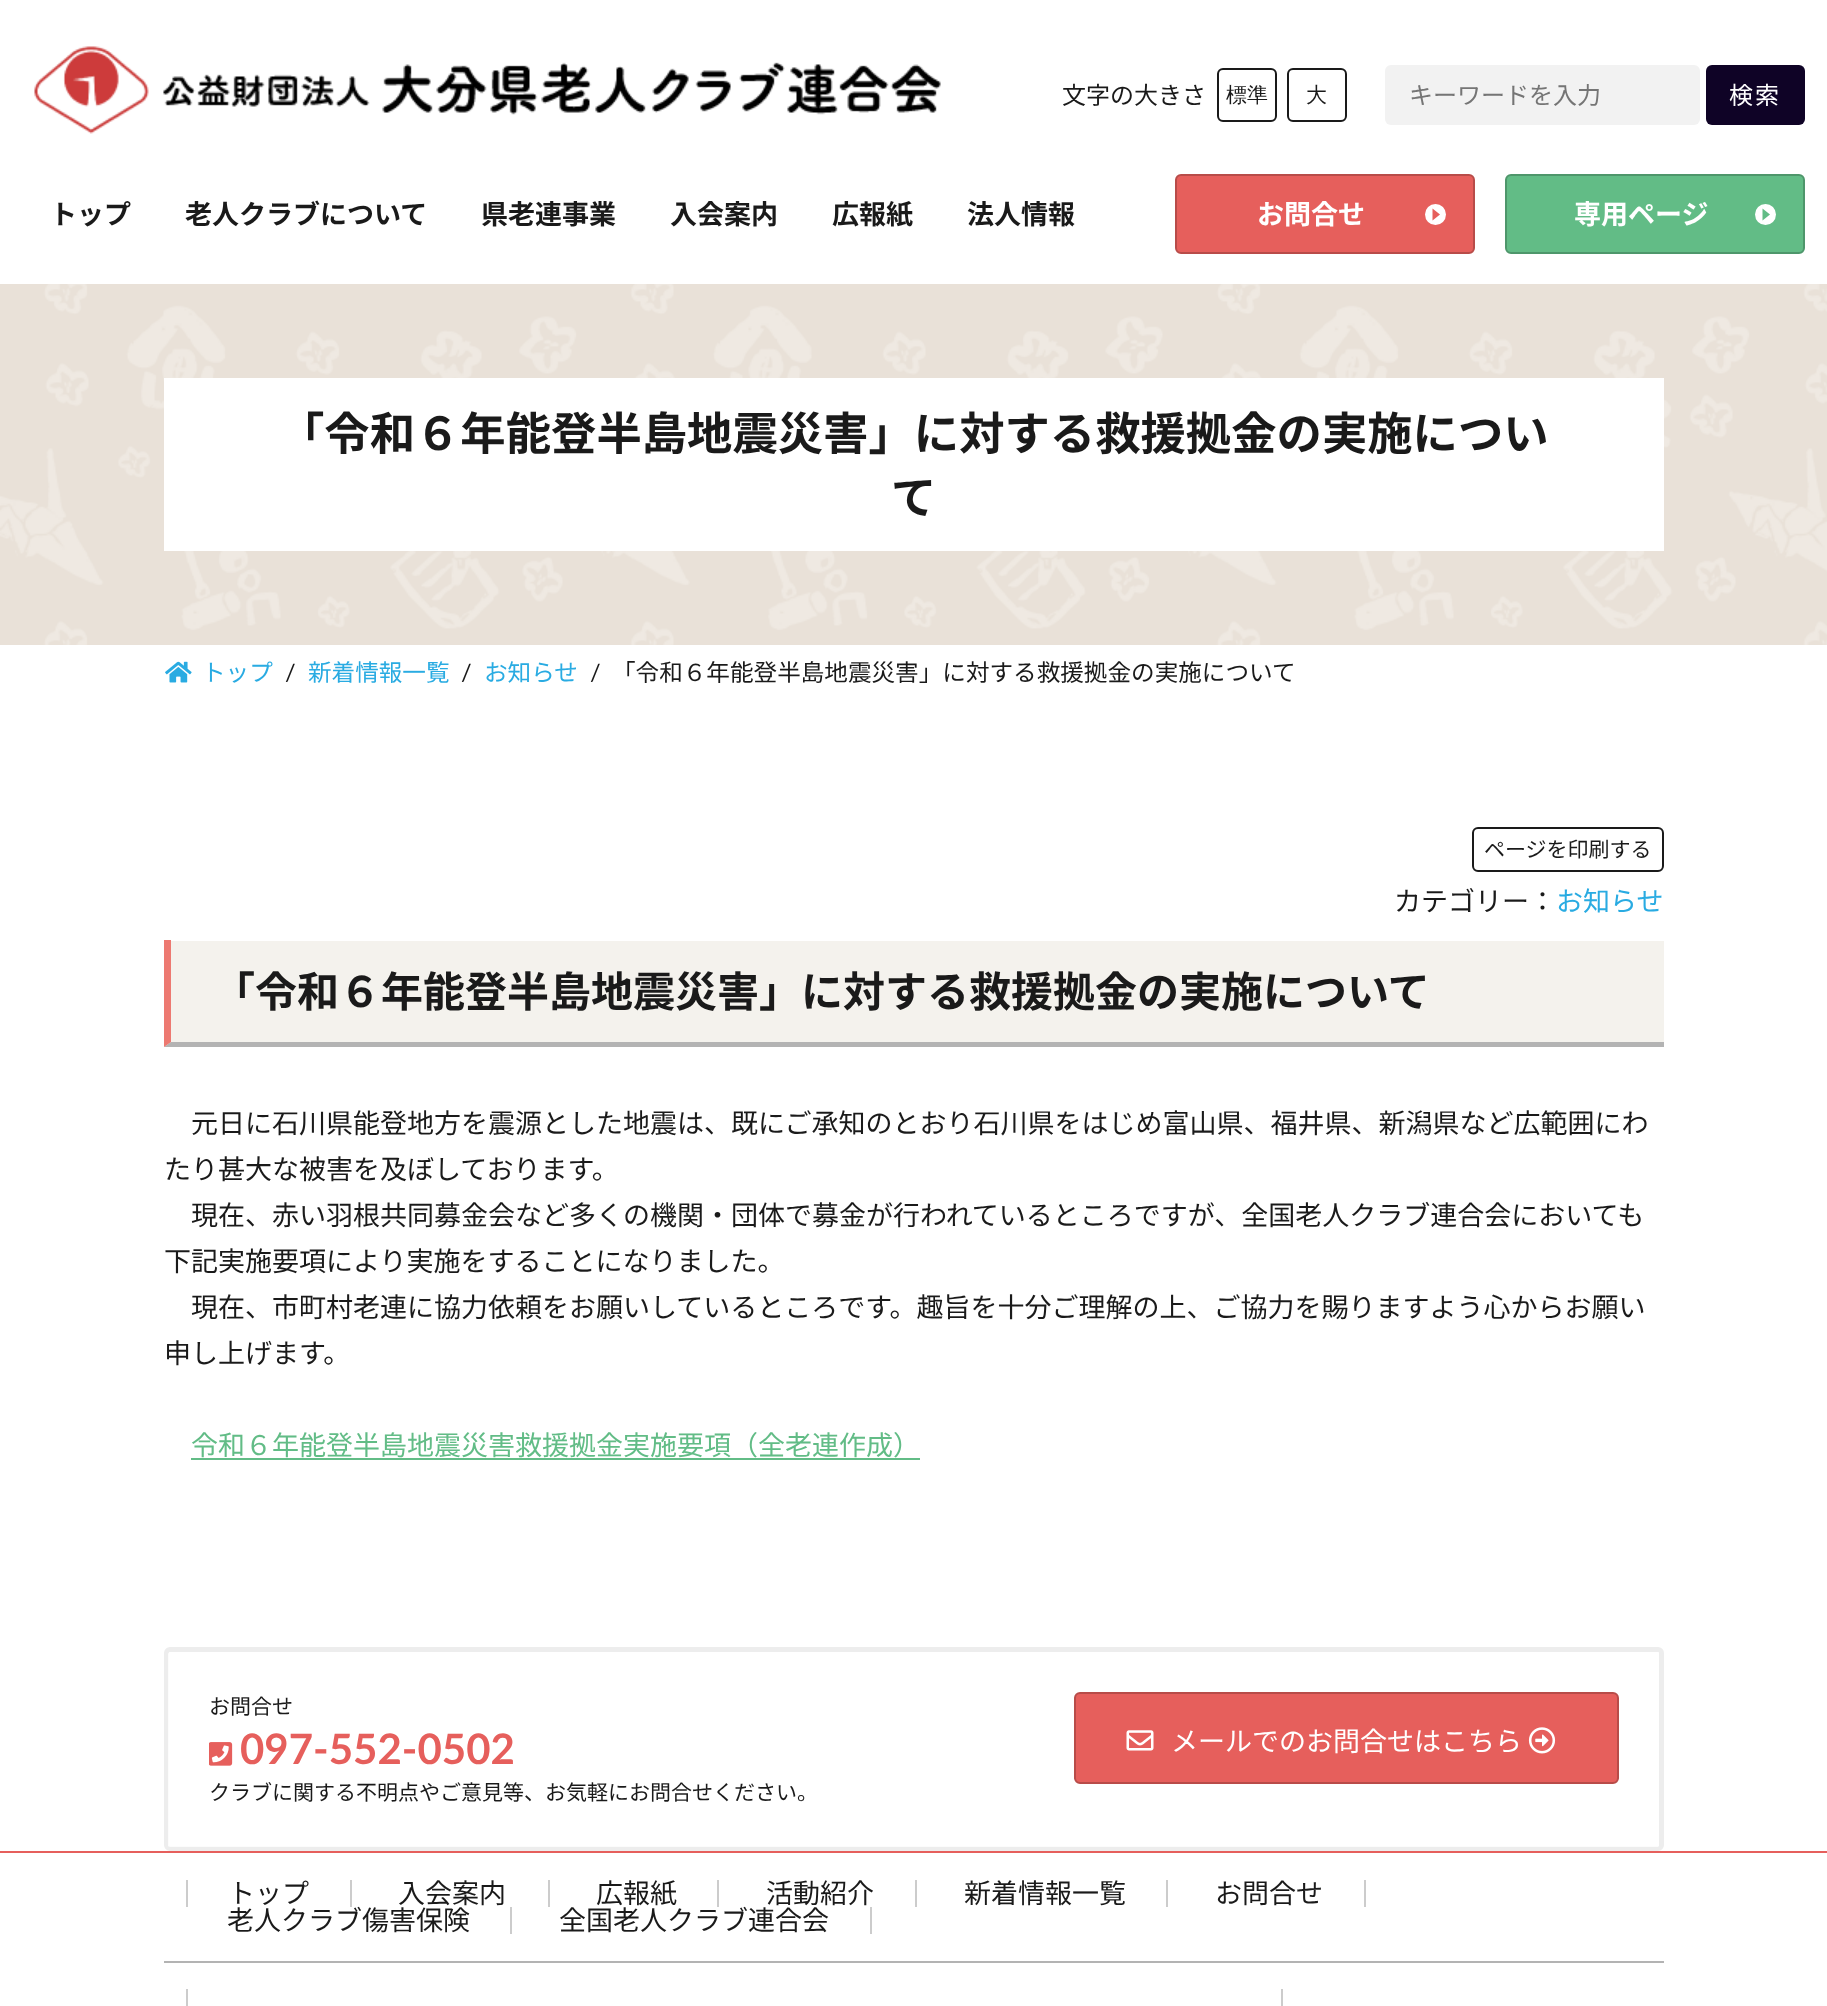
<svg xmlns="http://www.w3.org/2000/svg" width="1827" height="2006">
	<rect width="100%" height="100%" fill="#FFFFFF" />
	<image x="34" y="46" width="907" height="88" href="assets/img1.png" />
	<text x="1062" y="104" font-family="Noto Sans JP" font-size="24" fill="#1A1A1A">文字の大きさ</text>
	<rect x="1218" y="69" width="58" height="52" rx="5" fill="none" stroke="#1A1A1A" stroke-width="2" />
	<text x="1226" y="102" font-family="WenQuanYi Zen Hei" font-size="21" font-weight="500" fill="#1A1A1A">標準</text>
	<rect x="1288" y="69" width="58" height="52" rx="5" fill="none" stroke="#1A1A1A" stroke-width="2" />
	<text x="1306" y="102" font-family="WenQuanYi Zen Hei" font-size="21" font-weight="500" fill="#1A1A1A">大</text>
	<rect x="1385" y="65" width="315" height="60" rx="6" fill="#F2F2F2" />
	<text x="1409" y="104" font-family="Noto Sans JP" font-size="24" fill="#757575">キーワードを入力</text>
	<rect x="1706" y="65" width="99" height="60" rx="6" fill="#0F0326" />
	<text x="1729" y="104" font-family="Noto Sans JP" font-size="24" letter-spacing="2" fill="#FFFFFF">検索</text>
	<g font-family="Noto Sans JP" font-size="27" font-weight="700" fill="#1A1A1A">
		<text x="50" y="224">トップ</text>
		<text x="185" y="224">老人クラブについて</text>
		<text x="481" y="224">県老連事業</text>
		<text x="670" y="224">入会案内</text>
		<text x="832" y="224">広報紙</text>
		<text x="967" y="224">法人情報</text>
	</g>
	<rect x="1176" y="175" width="298" height="78" rx="5" fill="#E65F5C" stroke="#B84C49" stroke-width="2" />
	<text x="1257" y="224" font-family="Noto Sans JP" font-size="27" font-weight="700" fill="#FFFFFF">お問合せ</text>
	<circle cx="1435.5" cy="214.5" r="10.5" fill="#FFFFFF" />
	<path d="M1432.5 220.5V208.5L1440 214.5Z" fill="#E65F5C" />
	<rect x="1506" y="175" width="298" height="78" rx="5" fill="#62BC86" stroke="#4E966B" stroke-width="2" />
	<text x="1574" y="224" font-family="Noto Sans JP" font-size="27" font-weight="700" fill="#FFFFFF">専用ページ</text>
	<circle cx="1765.5" cy="214.5" r="10.5" fill="#FFFFFF" />
	<path d="M1762.5 220.5V208.5L1770 214.5Z" fill="#62BC86" />
	<image x="0" y="284" width="1827" height="361" href="assets/img2.png" />
	<rect x="164" y="378" width="1500" height="173" fill="#FFFFFF" />
	<g font-family="Noto Sans JP" font-size="45.35" font-weight="700" fill="#1A1A1A">
		<text x="279" y="450">「令和６年能登半島地震災害」に対する救援拠金の実施につい</text>
		<text x="891" y="514">て</text>
	</g>
	<image x="165" y="661" width="27" height="22" href="assets/img3.png" />
	<text x="202" y="681" font-family="Noto Sans JP" font-size="23.6" fill="#29ABE2">トップ</text>
	<text x="285" y="681" font-family="Lato" font-size="23.6" fill="#1A1A1A">/</text>
	<text x="308" y="681" font-family="Noto Sans JP" font-size="23.6" fill="#29ABE2">新着情報一覧</text>
	<text x="461" y="681" font-family="Lato" font-size="23.6" fill="#1A1A1A">/</text>
	<text x="484" y="681" font-family="Noto Sans JP" font-size="23.6" fill="#29ABE2">お知らせ</text>
	<text x="590" y="681" font-family="Lato" font-size="23.6" fill="#1A1A1A">/</text>
	<text x="612" y="681" font-family="Noto Sans JP" font-size="23.6" fill="#1A1A1A">「令和６年能登半島地震災害」に対する救援拠金の実施について</text>
	<rect x="1473" y="828" width="190" height="43" rx="5" fill="none" stroke="#1A1A1A" stroke-width="2" />
	<text x="1484" y="857" font-family="Noto Sans JP" font-size="21" fill="#1A1A1A">ページを印刷する</text>
	<text x="1394" y="911" font-family="Noto Sans JP" font-size="27" fill="#1A1A1A">カテゴリー：</text>
	<text x="1556" y="911" font-family="Noto Sans JP" font-size="27" fill="#29ABE2">お知らせ</text>
	<rect x="164" y="941" width="1500" height="106" fill="#F4F2ED" />
	<path d="M1664 1047H164L171 1042H1664Z" fill="#B3B3B3" />
	<path d="M164 1047V940H171V1042Z" fill="#ED7971" />
	<text x="213" y="1007" font-family="Noto Sans JP" font-size="42" font-weight="700" fill="#1A1A1A">「令和６年能登半島地震災害」に対する救援拠金の実施について</text>
	<g font-family="Noto Sans JP" font-size="27" fill="#1A1A1A">
		<text x="191" y="1133">元日に石川県能登地方を震源とした地震は、既にご承知のとおり石川県をはじめ富山県、福井県、新潟県など広範囲にわ</text>
		<text x="164" y="1179">たり甚大な被害を及ぼしております。</text>
		<text x="191" y="1225">現在、赤い羽根共同募金会など多くの機関・団体で募金が行われているところですが、全国老人クラブ連合会においても</text>
		<text x="164" y="1271">下記実施要項により実施をすることになりました。</text>
		<text x="191" y="1317">現在、市町村老連に協力依頼をお願いしているところです。趣旨を十分ご理解の上、ご協力を賜りますよう心からお願い</text>
		<text x="164" y="1363">申し上げます。</text>
	</g>
	<text x="191" y="1455" font-family="Noto Sans JP" font-size="27" fill="#62BC86">令和６年能登半島地震災害救援拠金実施要項（全老連作成）</text>
	<rect x="191" y="1458" width="729" height="2" fill="#62BC86" />
	<rect x="166.5" y="1649.5" width="1495" height="199" rx="3.5" fill="none" stroke="#EDEDED" stroke-width="5" />
	<path d="M170 1652C169 1652 168 1653 168 1654V1846C168 1846 169 1847 170 1847H1658C1658 1847 1659 1846 1659 1846V1654C1659 1653 1658 1652 1658 1652ZM170 1654V1845H1657V1654Z" fill="#FFFFFF" fill-opacity="0.8" fill-rule="evenodd" />
	<text x="209" y="1714" font-family="Noto Sans JP" font-size="21" fill="#1A1A1A">お問合せ</text>
	<image x="209" y="1742" width="24" height="24" href="assets/img4.png" />
	<text x="240" y="1764" font-family="Lato" font-size="42" font-weight="700" fill="#E65F5C">097-552-0502</text>
	<text x="209" y="1800" font-family="Noto Sans JP" font-size="21" fill="#1A1A1A">クラブに関する不明点やご意見等、お気軽にお問合せください。</text>
	<rect x="1075" y="1693" width="543" height="90" rx="5" fill="#E65F5C" stroke="#B84C49" stroke-width="2" />
	<image x="1126" y="1730" width="28" height="21" href="assets/img5.png" />
	<text x="1171" y="1751" font-family="Noto Sans JP" font-size="27" fill="#FFFFFF">メールでのお問合せはこちら</text>
	<image x="1528" y="1727" width="28" height="27" href="assets/img6.png" />
	<rect x="0" y="1851" width="1827" height="2" fill="#E65F5C" />
	<rect x="164" y="1961" width="1500" height="2" fill="#B3B3B3" />
	<rect x="350" y="1880" width="2" height="27" fill="#CCCCCC" />
	<rect x="186" y="1880" width="2" height="27" fill="#CCCCCC" />
	<text x="228" y="1903" font-family="Noto Sans JP" font-size="27" fill="#1A1A1A">トップ</text>
	<rect x="548" y="1880" width="2" height="27" fill="#CCCCCC" />
	<text x="398" y="1903" font-family="Noto Sans JP" font-size="27" fill="#1A1A1A">入会案内</text>
	<rect x="717" y="1880" width="2" height="27" fill="#CCCCCC" />
	<text x="596" y="1903" font-family="Noto Sans JP" font-size="27" fill="#1A1A1A">広報紙</text>
	<rect x="915" y="1880" width="2" height="27" fill="#CCCCCC" />
	<text x="766" y="1903" font-family="Noto Sans JP" font-size="27" fill="#1A1A1A">活動紹介</text>
	<rect x="1166" y="1880" width="2" height="27" fill="#CCCCCC" />
	<text x="964" y="1903" font-family="Noto Sans JP" font-size="27" fill="#1A1A1A">新着情報一覧</text>
	<rect x="1364" y="1880" width="2" height="27" fill="#CCCCCC" />
	<text x="1215" y="1903" font-family="Noto Sans JP" font-size="27" fill="#1A1A1A">お問合せ</text>
	<rect x="510" y="1907" width="2" height="27" fill="#CCCCCC" />
	<text x="227" y="1930" font-family="Noto Sans JP" font-size="27" fill="#1A1A1A">老人クラブ傷害保険</text>
	<rect x="870" y="1907" width="2" height="27" fill="#CCCCCC" />
	<text x="559" y="1930" font-family="Noto Sans JP" font-size="27" fill="#1A1A1A">全国老人クラブ連合会</text>
	<rect x="1281" y="1989" width="2" height="17" fill="#CCCCCC" />
	<rect x="186" y="1989" width="2" height="17" fill="#CCCCCC" />
</svg>
